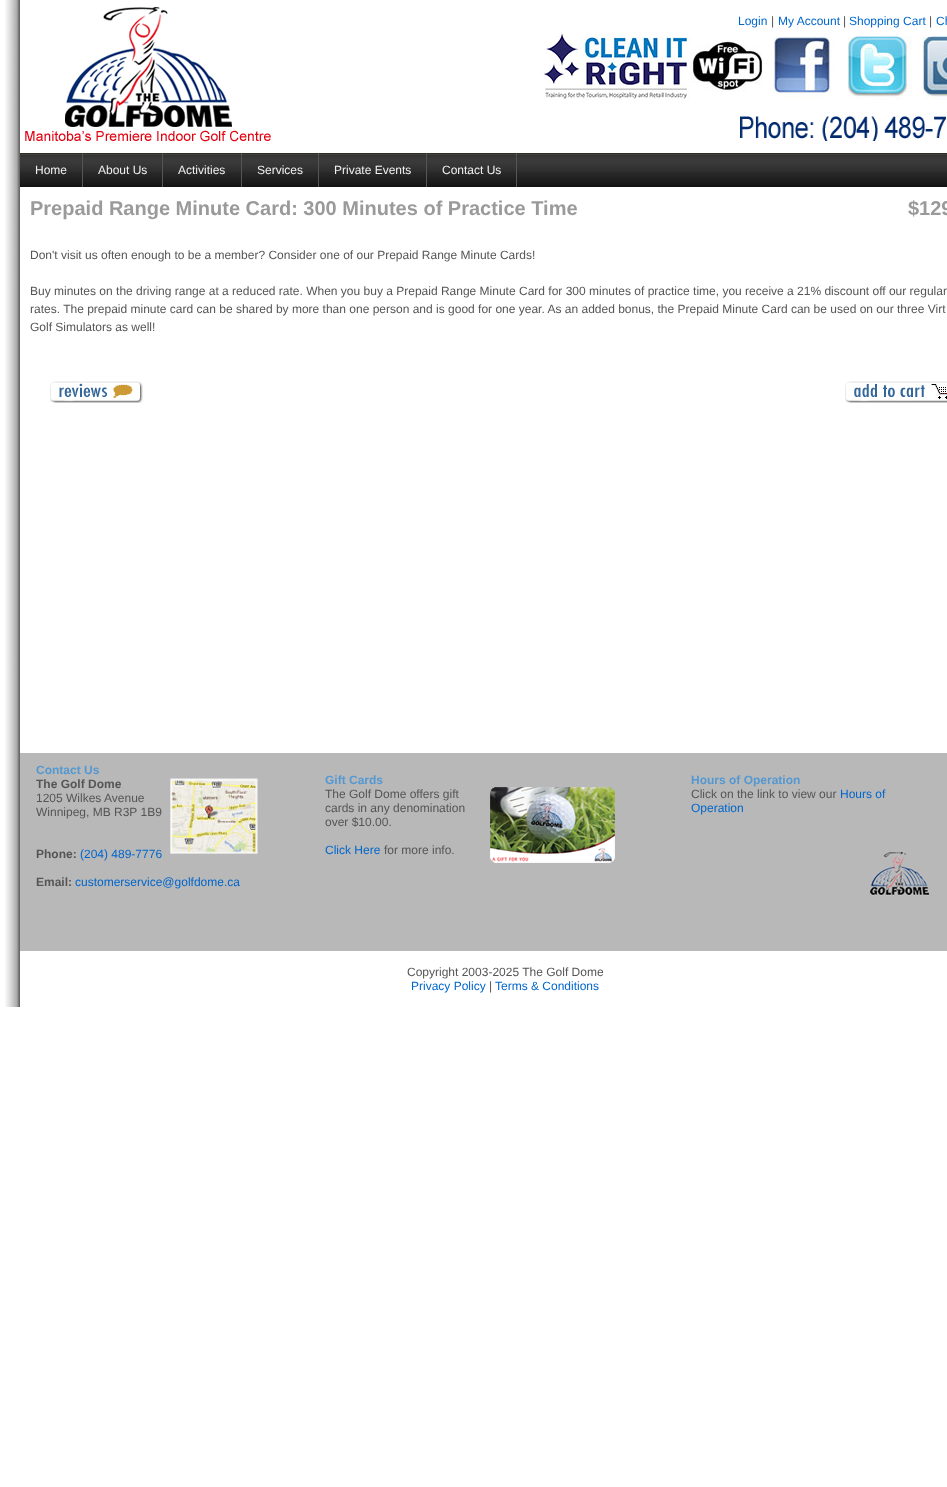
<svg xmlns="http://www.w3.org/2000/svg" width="947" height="1487">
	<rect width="100%" height="100%" fill="#FFFFFF" />
	<image x="5" y="0" width="15" height="1007" href="assets/img1.png" />
	<image x="25" y="7" width="246" height="135" href="assets/img2.png" />
	<text x="738" y="25" font-family="Liberation Sans" font-size="12" fill="#0066CC">Login</text>
	<text x="771" y="25" font-family="Liberation Sans" font-size="12" fill="#555555">|</text>
	<text x="778" y="25" font-family="Liberation Sans" font-size="12" fill="#0066CC">My Account</text>
	<text x="843" y="25" font-family="Liberation Sans" font-size="12" fill="#555555">|</text>
	<text x="849" y="25" font-family="Liberation Sans" font-size="12" fill="#0066CC">Shopping Cart</text>
	<text x="929" y="25" font-family="Liberation Sans" font-size="12" fill="#555555">|</text>
	<text x="936" y="25" font-family="Liberation Sans" font-size="12" fill="#0066CC">Ch</text>
	<image x="540" y="33" width="150" height="67" href="assets/img3.png" />
	<image x="690" y="38" width="73" height="54" href="assets/img4.png" />
	<image x="773" y="36" width="63" height="64" href="assets/img5.png" />
	<image x="848" y="36" width="64" height="64" href="assets/img6.png" />
	<image x="923" y="36" width="24" height="64" href="assets/img7.png" />
	<image x="740" y="116" width="206" height="25" href="assets/img8.png" />
	<image x="20" y="153" width="927" height="34" href="assets/img9.png" />
	<rect x="82" y="153" width="1" height="34" fill="#555555" />
	<text x="35" y="174" font-family="Liberation Sans" font-size="12" fill="#F0F0F0">Home</text>
	<rect x="162" y="153" width="1" height="34" fill="#555555" />
	<text x="98" y="174" font-family="Liberation Sans" font-size="12" fill="#F0F0F0">About Us</text>
	<rect x="241" y="153" width="1" height="34" fill="#555555" />
	<text x="178" y="174" font-family="Liberation Sans" font-size="12" fill="#F0F0F0">Activities</text>
	<rect x="318" y="153" width="1" height="34" fill="#555555" />
	<text x="257" y="174" font-family="Liberation Sans" font-size="12" fill="#F0F0F0">Services</text>
	<rect x="426" y="153" width="1" height="34" fill="#555555" />
	<text x="334" y="174" font-family="Liberation Sans" font-size="12" fill="#F0F0F0">Private Events</text>
	<rect x="516" y="153" width="1" height="34" fill="#555555" />
	<text x="442" y="174" font-family="Liberation Sans" font-size="12" fill="#F0F0F0">Contact Us</text>
	<g font-family="Liberation Sans" font-size="20" font-weight="700" fill="#9A9A9A">
		<text x="30" y="215">Prepaid Range Minute Card: 300 Minutes of Practice Time</text>
		<text x="908" y="215">$129</text>
	</g>
	<g font-family="Liberation Sans" font-size="12" fill="#555555">
		<text x="30" y="259">Don't visit us often enough to be a member? Consider one of our Prepaid Range Minute Cards!</text>
		<text x="30" y="295">Buy minutes on the driving range at a reduced rate. When you buy a Prepaid Range Minute Card for 300 minutes of practice time, you receive a 21% discount off our regular</text>
		<text x="30" y="313">rates. The prepaid minute card can be shared by more than one person and is good for one year. As an added bonus, the Prepaid Minute Card can be used on our three Virt</text>
		<text x="30" y="331">Golf Simulators as well!</text>
	</g>
	<image x="50" y="381" width="93" height="22" href="assets/img10.png" />
	<image x="845" y="381" width="102" height="22" href="assets/img11.png" />
	<rect x="20" y="753" width="927" height="198" fill="#B8B8B8" />
	<text x="36" y="774" font-family="Liberation Sans" font-size="12" font-weight="700" fill="#5498D2">Contact Us</text>
	<text x="36" y="788" font-family="Liberation Sans" font-size="12" font-weight="700" fill="#555555">The Golf Dome</text>
	<image x="170" y="778" width="88" height="76" href="assets/img12.png" />
	<g font-family="Liberation Sans" font-size="12" fill="#555555">
		<text x="36" y="802">1205 Wilkes Avenue</text>
		<text x="36" y="816">Winnipeg, MB R3P 1B9</text>
	</g>
	<text x="36" y="858" font-family="Liberation Sans" font-size="12" font-weight="700" fill="#555555">Phone:</text>
	<text x="80" y="858" font-family="Liberation Sans" font-size="12" fill="#0066CC">(204) 489-7776</text>
	<text x="36" y="886" font-family="Liberation Sans" font-size="12" font-weight="700" fill="#555555">Email:</text>
	<text x="75" y="886" font-family="Liberation Sans" font-size="12" fill="#0066CC">customerservice@golfdome.ca</text>
	<text x="325" y="784" font-family="Liberation Sans" font-size="12" font-weight="700" fill="#5498D2">Gift Cards</text>
	<text x="325" y="798" font-family="Liberation Sans" font-size="12" fill="#555555">The Golf Dome offers gift</text>
	<image x="490" y="787" width="125" height="76" href="assets/img13.png" />
	<g font-family="Liberation Sans" font-size="12" fill="#555555">
		<text x="325" y="812">cards in any denomination</text>
		<text x="325" y="826">over $10.00.</text>
	</g>
	<text x="325" y="854" font-family="Liberation Sans" font-size="12" fill="#0066CC">Click Here</text>
	<text x="384" y="854" font-family="Liberation Sans" font-size="12" fill="#555555">for more info.</text>
	<image x="870" y="852" width="59" height="44" href="assets/img14.png" />
	<text x="691" y="784" font-family="Liberation Sans" font-size="12" font-weight="700" fill="#5498D2">Hours of Operation</text>
	<text x="691" y="798" font-family="Liberation Sans" font-size="12" fill="#555555">Click on the link to view our</text>
	<g font-family="Liberation Sans" font-size="12" fill="#0066CC">
		<text x="840" y="798">Hours of</text>
		<text x="691" y="812">Operation</text>
	</g>
	<text x="407" y="976" font-family="Liberation Sans" font-size="12" fill="#555555">Copyright 2003-2025 The Golf Dome</text>
	<text x="411" y="990" font-family="Liberation Sans" font-size="12" fill="#0066CC">Privacy Policy</text>
	<text x="489" y="990" font-family="Liberation Sans" font-size="12" fill="#555555">|</text>
	<text x="495" y="990" font-family="Liberation Sans" font-size="12" fill="#0066CC">Terms &amp; Conditions</text>
</svg>
